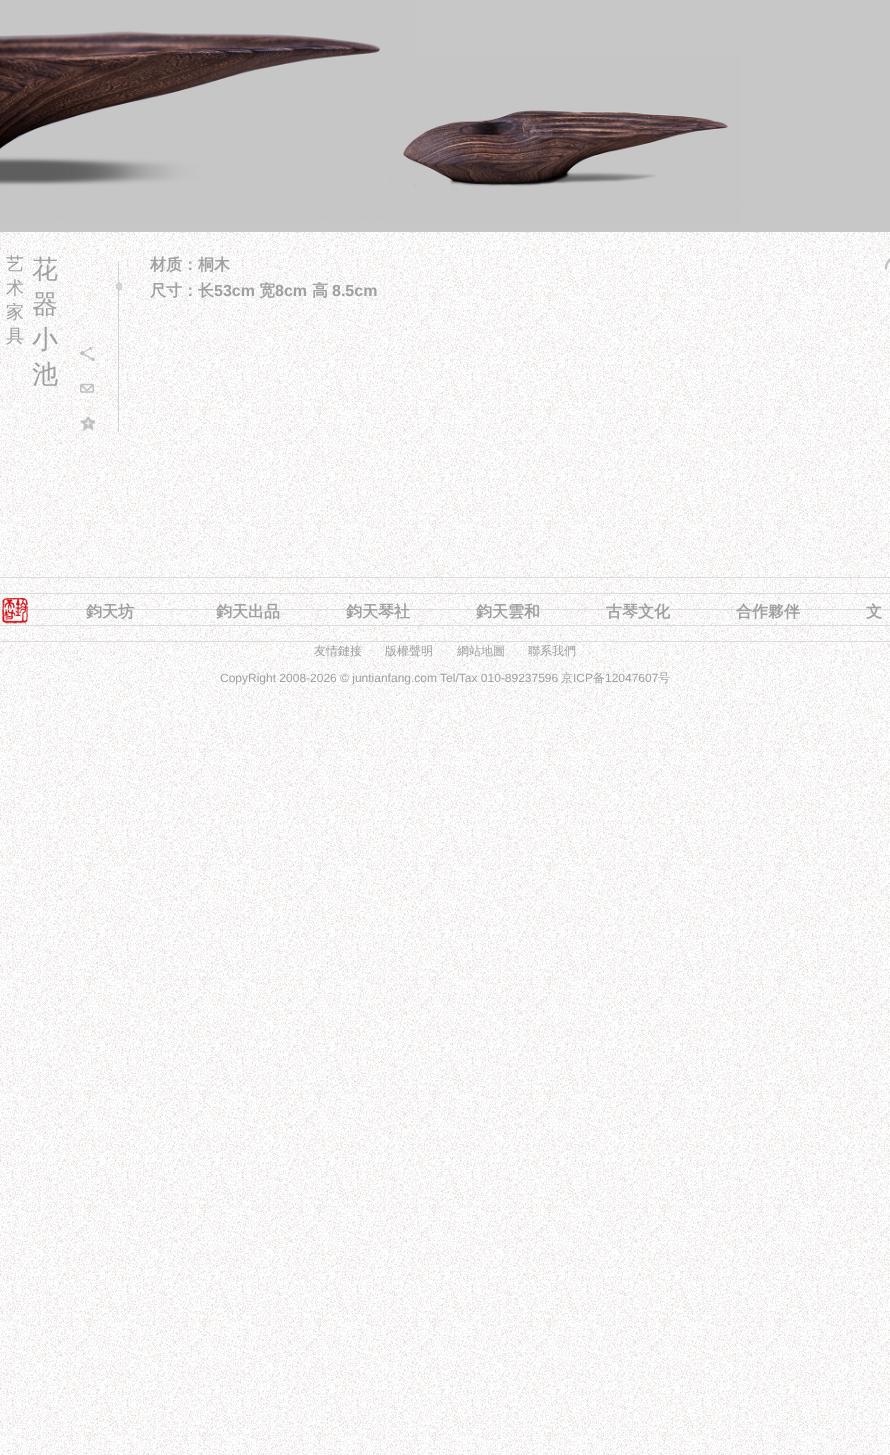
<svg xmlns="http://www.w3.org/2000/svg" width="890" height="1455">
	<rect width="100%" height="100%" fill="#FFFFFF" />
	<image x="0" y="232" width="890" height="1223" href="assets/img1.png" />
	<image x="0" y="0" width="890" height="232" href="assets/img2.png" />
	<g font-family="WenQuanYi Zen Hei" font-size="18" font-weight="500" fill="#9FA0A0">
		<text x="6" y="270">艺</text>
		<text x="6" y="294">术</text>
		<text x="6" y="318">家</text>
		<text x="6" y="342">具</text>
	</g>
	<g font-family="WenQuanYi Zen Hei" font-size="26" font-weight="500" fill="#9FA0A0">
		<text x="32" y="278">花</text>
		<text x="32" y="313">器</text>
		<text x="32" y="348">小</text>
		<text x="32" y="383">池</text>
	</g>
	<image x="118" y="262" width="1" height="170" href="assets/img3.png" />
	<image x="116" y="282" width="6" height="9" href="assets/img4.png" />
	<g font-family="WenQuanYi Zen Hei" font-size="16" font-weight="700" fill="#9FA0A0">
		<text x="150" y="270">材质：桐木</text>
		<text x="150" y="296">尺寸：长</text>
	</g>
	<text x="214" y="296" font-family="Liberation Sans" font-size="16" font-weight="700" fill="#9FA0A0">53cm</text>
	<text x="259" y="296" font-family="WenQuanYi Zen Hei" font-size="16" font-weight="700" fill="#9FA0A0">宽</text>
	<text x="275" y="296" font-family="Liberation Sans" font-size="16" font-weight="700" fill="#9FA0A0">8cm</text>
	<text x="312" y="296" font-family="WenQuanYi Zen Hei" font-size="16" font-weight="700" fill="#9FA0A0">高</text>
	<text x="332" y="296" font-family="Liberation Sans" font-size="16" font-weight="700" fill="#9FA0A0">8.5cm</text>
	<image x="885" y="258" width="5" height="12" href="assets/img5.png" />
	<image x="80" y="347" width="15" height="14" href="assets/img6.png" />
	<image x="80" y="383" width="14" height="10" href="assets/img7.png" />
	<image x="80" y="417" width="15" height="14" href="assets/img8.png" />
	<image x="0" y="562" width="890" height="165" href="assets/img9.png" />
	<rect x="0" y="577" width="890" height="1" fill="#DDDBDB" />
	<rect x="0" y="593" width="890" height="1" fill="#DDDBDB" />
	<rect x="0" y="609" width="890" height="1" fill="#DDDBDB" />
	<rect x="0" y="625" width="890" height="1" fill="#DDDBDB" />
	<rect x="0" y="641" width="890" height="1" fill="#DDDBDB" />
	<image x="2" y="598" width="26" height="26" href="assets/img10.png" />
	<g font-family="WenQuanYi Zen Hei" font-size="16" font-weight="700" fill="#9FA0A0">
		<text x="86" y="617">鈞天坊</text>
		<text x="216" y="617">鈞天出品</text>
		<text x="346" y="617">鈞天琴社</text>
		<text x="476" y="617">鈞天雲和</text>
		<text x="606" y="617">古琴文化</text>
		<text x="736" y="617">合作夥伴</text>
		<text x="866" y="617">文</text>
	</g>
	<g font-family="WenQuanYi Zen Hei" font-size="12" font-weight="500" fill="#9FA0A0">
		<text x="314" y="655">友情鏈接</text>
		<text x="385" y="655">版權聲明</text>
		<text x="457" y="655">網站地圖</text>
		<text x="528" y="655">聯系我們</text>
	</g>
	<text x="220" y="682" font-family="Liberation Sans" font-size="12" fill="#9FA0A0">CopyRight 2008-2026 © juntianfang.com Tel/Tax 010-89237596</text>
	<text x="561" y="682" font-family="WenQuanYi Zen Hei" font-size="12" font-weight="500" fill="#9FA0A0">京</text>
	<text x="573" y="682" font-family="Liberation Sans" font-size="12" fill="#9FA0A0">ICP</text>
	<text x="593" y="682" font-family="WenQuanYi Zen Hei" font-size="12" font-weight="500" fill="#9FA0A0">备</text>
	<text x="605" y="682" font-family="Liberation Sans" font-size="12" fill="#9FA0A0">12047607</text>
	<text x="658" y="682" font-family="WenQuanYi Zen Hei" font-size="12" font-weight="500" fill="#9FA0A0">号</text>
</svg>
